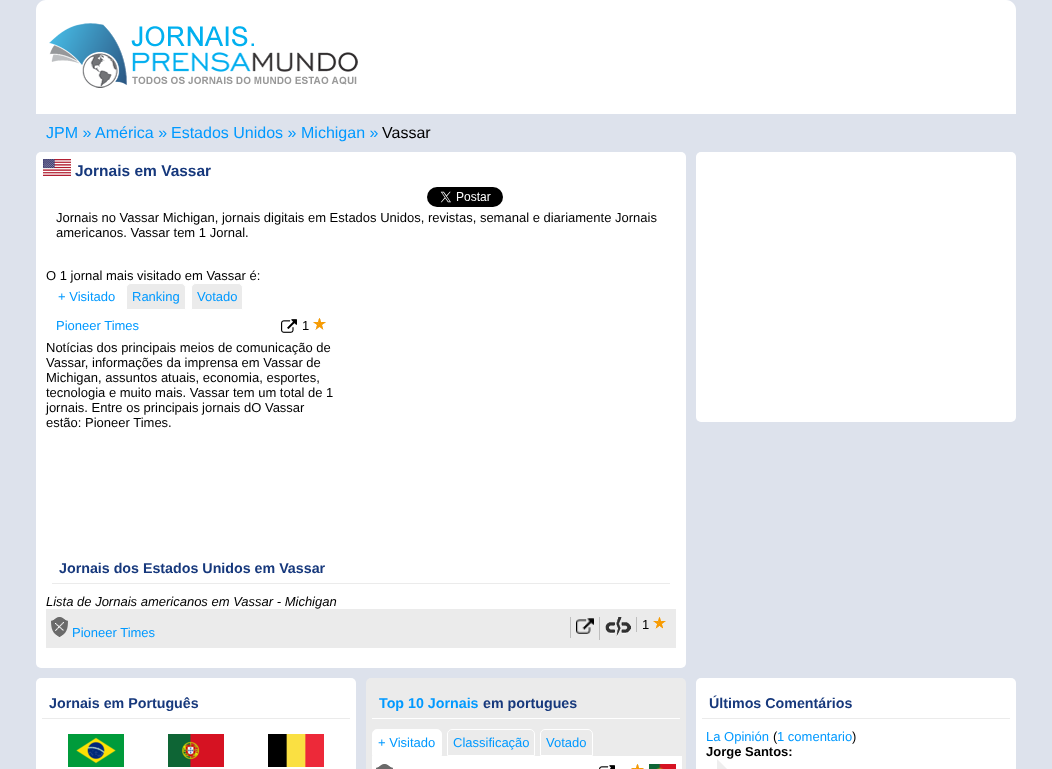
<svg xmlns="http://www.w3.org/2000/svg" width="1052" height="769">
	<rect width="100%" height="100%" fill="#DDE2EC" />
	<path d="M46 0H1006C1011.5 0 1016 4.5 1016 10V114H36V10C36 4.5 40.5 0 46 0Z" fill="#FFFFFF" />
	<image x="49" y="23" width="309" height="65" href="assets/img1.png" />
	<g font-family="Liberation Sans" font-size="16" fill="#0099FF">
		<text x="46" y="138">JPM »</text>
		<text x="95" y="138">América »</text>
		<text x="171" y="138">Estados Unidos »</text>
		<text x="301" y="138">Michigan »</text>
	</g>
	<text x="382" y="138" font-family="Liberation Sans" font-size="16" fill="#000000">Vassar</text>
	<rect x="36" y="152" width="650" height="516" rx="5" fill="#FFFFFF" />
	<image x="43" y="159" width="28" height="17" href="assets/img2.png" />
	<text x="75" y="176" font-family="Liberation Sans" font-size="15.5" font-weight="700" fill="#16387C">Jornais em Vassar</text>
	<image x="427" y="187" width="76" height="20" href="assets/img3.png" />
	<g font-family="Liberation Sans" font-size="13" fill="#000000">
		<text x="56" y="222">Jornais no Vassar Michigan, jornais digitais em Estados Unidos, revistas, semanal e diariamente Jornais</text>
		<text x="56" y="237">americanos. Vassar tem 1 Jornal.</text>
		<text x="46" y="280">O 1 jornal mais visitado em Vassar é:</text>
	</g>
	<text x="58" y="301" font-family="Liberation Sans" font-size="13" fill="#0099FF">+ Visitado</text>
	<path d="M131 283.5H181C183.5 283.5 185.5 285.5 185.5 288V309.5H126.5V288C126.5 285.5 128.5 283.5 131 283.5Z" fill="#EBEBEB" stroke="#FFFFFF" />
	<text x="132" y="301" font-family="Liberation Sans" font-size="13" fill="#0099FF">Ranking</text>
	<path d="M196 283.5H238C240.5 283.5 242.5 285.5 242.5 288V309.5H191.5V288C191.5 285.5 193.5 283.5 196 283.5Z" fill="#EBEBEB" stroke="#FFFFFF" />
	<g font-family="Liberation Sans" font-size="13" fill="#0099FF">
		<text x="197" y="301">Votado</text>
		<text x="56" y="330">Pioneer Times</text>
	</g>
	<image x="281" y="319" width="16" height="14" href="assets/img4.png" />
	<text x="302" y="330" font-family="Liberation Sans" font-size="13" fill="#000000">1</text>
	<image x="313" y="318" width="13" height="12" href="assets/img5.png" />
	<g font-family="Liberation Sans" font-size="13" fill="#000000">
		<text x="46" y="352">Notícias dos principais meios de comunicação de</text>
		<text x="46" y="367">Vassar, informações da imprensa em Vassar de</text>
		<text x="46" y="382">Michigan, assuntos atuais, economia, esportes,</text>
		<text x="46" y="397">tecnologia e muito mais. Vassar tem um total de 1</text>
		<text x="46" y="412">jornais. Entre os principais jornais dO Vassar</text>
		<text x="46" y="427">estão: Pioneer Times.</text>
	</g>
	<rect x="52" y="583" width="618" height="1" fill="#EBEBEB" />
	<text x="59" y="573" font-family="Liberation Sans" font-size="14.25" font-weight="700" fill="#16387C">Jornais dos Estados Unidos em Vassar</text>
	<text x="46" y="606" font-family="Liberation Sans" font-size="13" font-style="italic" fill="#000000">Lista de Jornais americanos em Vassar - Michigan</text>
	<rect x="46" y="609" width="630" height="39" fill="#EBEBEB" />
	<image x="51" y="617" width="17" height="20" href="assets/img6.png" />
	<rect x="570" y="617" width="1" height="21" fill="#BEBEBE" />
	<image x="576" y="618" width="18" height="16" href="assets/img7.png" />
	<rect x="599" y="617" width="1" height="23" fill="#BEBEBE" />
	<image x="605" y="617" width="26" height="20" href="assets/img8.png" />
	<rect x="636" y="617" width="1" height="15" fill="#BEBEBE" />
	<text x="642" y="629" font-family="Liberation Sans" font-size="13" fill="#000000">1</text>
	<image x="653" y="617" width="13" height="12" href="assets/img9.png" />
	<text x="72" y="637" font-family="Liberation Sans" font-size="13" fill="#0099FF">Pioneer Times</text>
	<rect x="696" y="152" width="320" height="270" rx="5" fill="#FFFFFF" />
	<rect x="36" y="678" width="320" height="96" rx="5" fill="#FFFFFF" />
	<rect x="42" y="718" width="308" height="1" fill="#EBEBEB" />
	<text x="49" y="708" font-family="Liberation Sans" font-size="14.25" font-weight="700" fill="#16387C">Jornais em Português</text>
	<image x="68" y="734" width="56" height="33" href="assets/img10.png" />
	<image x="168" y="734" width="56" height="33" href="assets/img11.png" />
	<image x="268" y="734" width="56" height="33" href="assets/img12.png" />
	<rect x="366" y="678" width="320" height="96" rx="5" fill="#EBEBEB" />
	<rect x="372" y="718" width="308" height="1" fill="#FFFFFF" />
	<text x="379" y="708" font-family="Liberation Sans" font-size="14.25" font-weight="700" fill="#0099FF">Top 10 Jornais</text>
	<text x="483" y="708" font-family="Liberation Sans" font-size="14.25" font-weight="700" fill="#16387C">em portugues</text>
	<path d="M377 729.5H437C439.5 729.5 441.5 731.5 441.5 734V755.5H372.5V734C372.5 731.5 374.5 729.5 377 729.5Z" fill="#FFFFFF" stroke="#FFFFFF" />
	<text x="378" y="747" font-family="Liberation Sans" font-size="13" fill="#0099FF">+ Visitado</text>
	<path d="M452 729.5H530C532.5 729.5 534.5 731.5 534.5 734V755.5H447.5V734C447.5 731.5 449.5 729.5 452 729.5Z" fill="none" stroke="#FFFFFF" />
	<text x="453" y="747" font-family="Liberation Sans" font-size="13" fill="#0099FF">Classificação</text>
	<path d="M545 729.5H588C590.5 729.5 592.5 731.5 592.5 734V755.5H540.5V734C540.5 731.5 542.5 729.5 545 729.5Z" fill="none" stroke="#FFFFFF" />
	<text x="546" y="747" font-family="Liberation Sans" font-size="13" fill="#0099FF">Votado</text>
	<rect x="372.5" y="756.5" width="309" height="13" fill="none" stroke="#FFFFFF" />
	<rect x="373" y="757" width="308" height="12" fill="#FFFFFF" />
	<image x="376" y="764" width="17" height="5" href="assets/img13.png" />
	<image x="599" y="765" width="16" height="4" href="assets/img14.png" />
	<image x="631" y="764" width="13" height="5" href="assets/img15.png" />
	<image x="649" y="764" width="27" height="5" href="assets/img16.png" />
	<rect x="696" y="678" width="320" height="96" rx="5" fill="#FFFFFF" />
	<rect x="702" y="718" width="308" height="1" fill="#EBEBEB" />
	<text x="709" y="708" font-family="Liberation Sans" font-size="14.25" font-weight="700" fill="#16387C">Últimos Comentários</text>
	<text x="706" y="741" font-family="Liberation Sans" font-size="13" fill="#0099FF">La Opinión</text>
	<text x="773" y="741" font-family="Liberation Sans" font-size="13" fill="#000000">(</text>
	<text x="777" y="741" font-family="Liberation Sans" font-size="13" fill="#0099FF">1 comentario</text>
	<text x="852" y="741" font-family="Liberation Sans" font-size="13" fill="#000000">)</text>
	<text x="706" y="756" font-family="Liberation Sans" font-size="13" font-weight="700" fill="#000000">Jorge Santos:</text>
	<path d="M717 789V759L732 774Z" fill="#EEEEEE" />
</svg>
